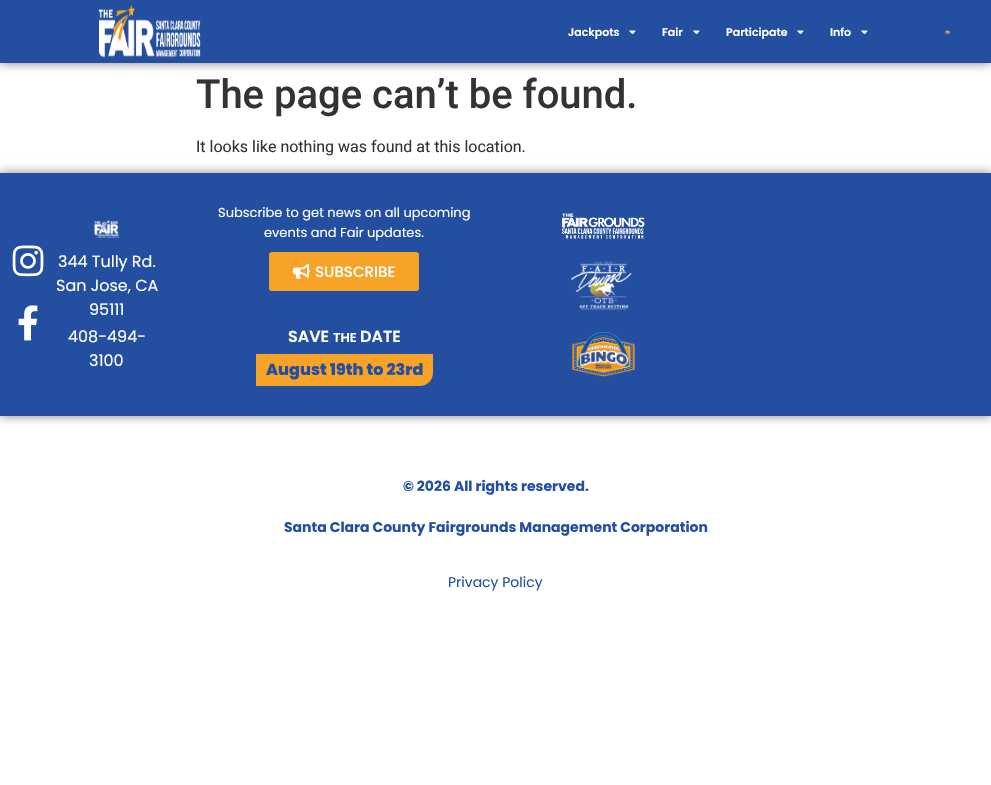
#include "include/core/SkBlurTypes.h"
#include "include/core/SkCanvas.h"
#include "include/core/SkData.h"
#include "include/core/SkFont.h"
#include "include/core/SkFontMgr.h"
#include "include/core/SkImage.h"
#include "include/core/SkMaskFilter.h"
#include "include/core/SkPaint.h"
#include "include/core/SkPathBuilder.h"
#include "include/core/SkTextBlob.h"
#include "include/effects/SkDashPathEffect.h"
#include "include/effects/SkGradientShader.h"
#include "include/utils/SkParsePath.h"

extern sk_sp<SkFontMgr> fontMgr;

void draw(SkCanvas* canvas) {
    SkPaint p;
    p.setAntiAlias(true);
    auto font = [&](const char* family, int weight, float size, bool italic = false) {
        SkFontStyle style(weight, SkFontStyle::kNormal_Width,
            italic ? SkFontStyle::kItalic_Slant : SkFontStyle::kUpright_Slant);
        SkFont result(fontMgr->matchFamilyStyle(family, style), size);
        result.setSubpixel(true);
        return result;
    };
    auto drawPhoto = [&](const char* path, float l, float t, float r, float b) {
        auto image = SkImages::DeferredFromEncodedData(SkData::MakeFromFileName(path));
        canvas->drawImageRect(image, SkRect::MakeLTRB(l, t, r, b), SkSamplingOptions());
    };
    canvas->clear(0xFFFFFFFF);
    p.setColor(0x80000000);
    p.setMaskFilter(SkMaskFilter::MakeBlur(kNormal_SkBlurStyle, 5));
    canvas->drawRect(SkRect::MakeLTRB(0, 0, 991, 63), p);
    p.setMaskFilter(nullptr);
    p.setColor(0xFF244FA1);
    canvas->drawRect(SkRect::MakeLTRB(0, 0, 991, 63), p);
    drawPhoto("media/1.png", 98, 4, 201, 58);
    auto font1 = font("Poppins", 600, 11);
    p.setColor(0xFFFFFFFF);
    canvas->drawString("Jackpots", 568, 36, font1, p);
    drawPhoto("media/2.png", 629, 30, 636, 35);
    canvas->drawString("Fair", 662, 36, font1, p);
    drawPhoto("media/2.png", 693, 30, 700, 35);
    canvas->drawString("Participate", 726, 36, font1, p);
    drawPhoto("media/2.png", 797, 30, 804, 35);
    canvas->drawString("Info", 830, 36, font1, p);
    drawPhoto("media/2.png", 861, 30, 868, 35);
    drawPhoto("media/3.png", 945, 30, 950, 34);
    auto font2 = font("Roboto", 500, 40);
    p.setColor(0xFF333333);
    canvas->drawString("The page can’t be found.", 196, 108, font2, p);
    auto font3 = font("Roboto", 400, 16);
    canvas->drawString("It looks like nothing was found at this location.", 196, 152, font3, p);
    p.setColor(0x80000000);
    p.setMaskFilter(SkMaskFilter::MakeBlur(kNormal_SkBlurStyle, 5));
    canvas->drawRect(SkRect::MakeLTRB(0, 173, 991, 416), p);
    p.setMaskFilter(nullptr);
    p.setColor(0xFF244FA1);
    canvas->drawRect(SkRect::MakeLTRB(0, 173, 991, 416), p);
    drawPhoto("media/4.png", 12, 245, 44, 277);
    drawPhoto("media/5.png", 18, 305, 38, 341);
    drawPhoto("media/6.png", 94, 220, 119, 238);
    auto font4 = font("Poppins", 400, 16);
    p.setColor(0xFFFFFFFF);
    {
        const struct { const char* s; float x, y; } items[] = {
            {"344 Tully Rd.", 58, 267},
            {"San Jose, CA", 56, 291},
            {"95111", 89, 315},
            {"408-494-", 68, 342},
            {"3100", 89, 366},
        };
        for (auto [s, x, y] : items) {
            canvas->drawString(s, x, y, font4, p);
        }
    }
    auto font5 = font("Poppins", 400, 13);
    canvas->drawString("Subscribe to get news on all upcoming", 218, 217, font5, p);
    canvas->drawString("events and Fair updates.", 264, 237, font5, p);
    p.setColor(0xFFF7A327);
    canvas->drawRoundRect(SkRect::MakeLTRB(269, 252, 419, 291), 3, 3, p);
    drawPhoto("media/7.png", 293, 263, 310, 279);
    auto font6 = font("Poppins", 500, 15);
    p.setColor(0xFFFFFFFF);
    canvas->drawString("SUBSCRIBE", 315, 277, font6, p);
    auto font7 = font("Poppins", 600, 16);
    canvas->drawString("SAVE", 288, 342, font7, p);
    auto font8 = font("Poppins", 600, 13);
    canvas->drawString("THE", 333, 342, font8, p);
    canvas->drawString("DATE", 360, 342, font7, p);
    p.setColor(0xFFF7A327);
    canvas->drawPath(SkPathBuilder().moveTo(256, 354).lineTo(433, 354).lineTo(433, 373).cubicTo(433, 380, 427, 386, 420, 386).lineTo(256, 386).close().detach(), p);
    auto font9 = font("Poppins", 800, 16);
    p.setColor(0xFF244FA1);
    canvas->drawString("August 19th to 23rd", 266, 375, font9, p);
    drawPhoto("media/8.png", 561, 213, 645, 239);
    drawPhoto("media/9.png", 571, 261, 632, 310);
    drawPhoto("media/10.png", 572, 331, 635, 377);
    auto font10 = font("Poppins", 700, 14);
    canvas->drawString("© 2026 All rights reserved.", 403, 491, font10, p);
    canvas->drawString("Santa Clara County Fairgrounds Management Corporation", 284, 532, font10, p);
    auto font11 = font("Poppins", 400, 14);
    canvas->drawString("Privacy Policy", 448, 587, font11, p);
}
